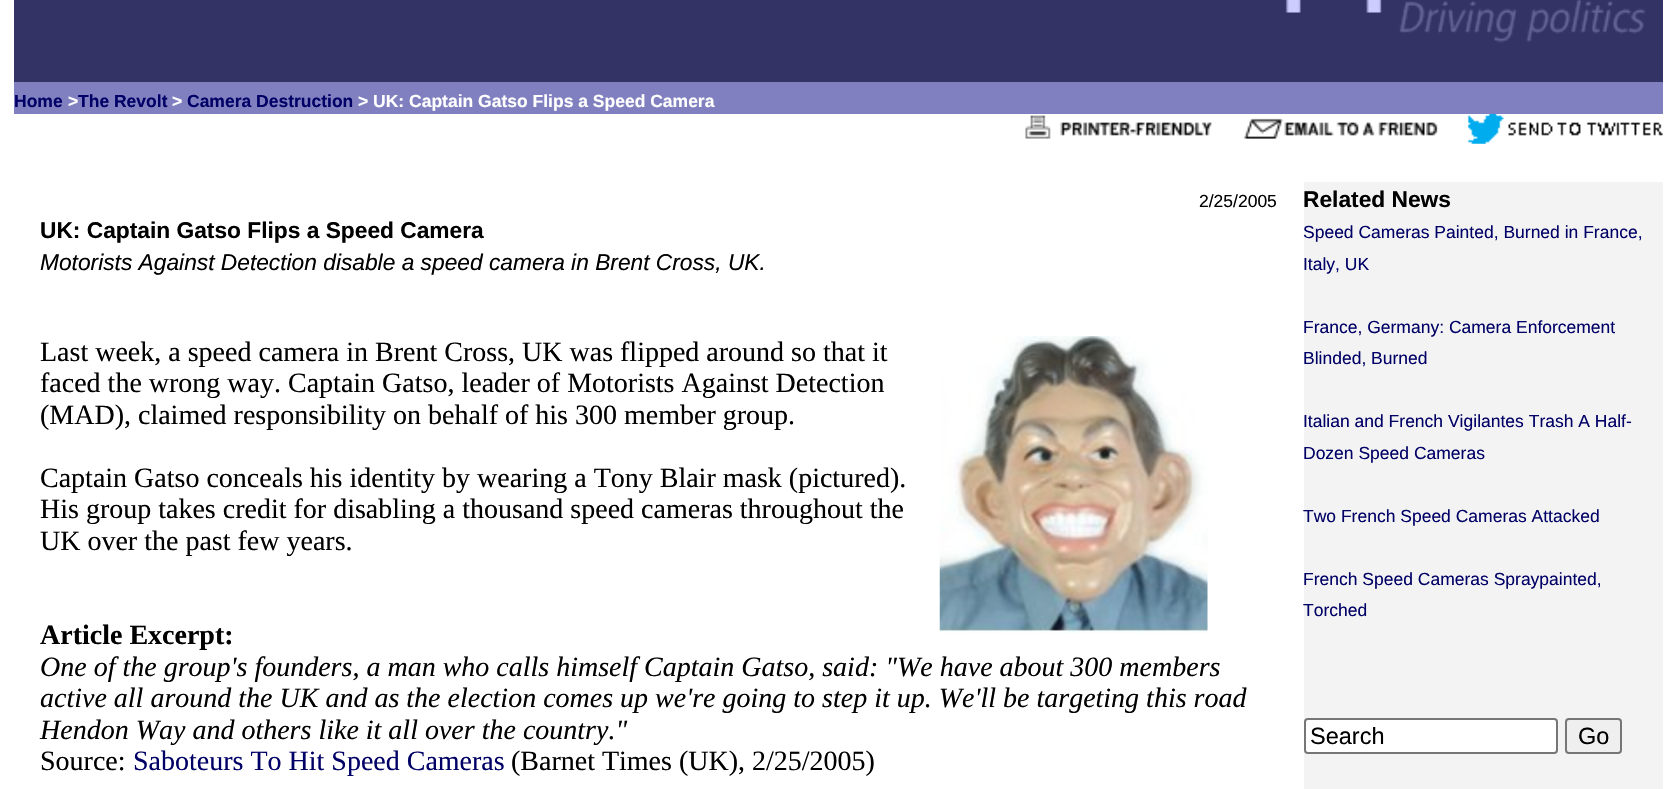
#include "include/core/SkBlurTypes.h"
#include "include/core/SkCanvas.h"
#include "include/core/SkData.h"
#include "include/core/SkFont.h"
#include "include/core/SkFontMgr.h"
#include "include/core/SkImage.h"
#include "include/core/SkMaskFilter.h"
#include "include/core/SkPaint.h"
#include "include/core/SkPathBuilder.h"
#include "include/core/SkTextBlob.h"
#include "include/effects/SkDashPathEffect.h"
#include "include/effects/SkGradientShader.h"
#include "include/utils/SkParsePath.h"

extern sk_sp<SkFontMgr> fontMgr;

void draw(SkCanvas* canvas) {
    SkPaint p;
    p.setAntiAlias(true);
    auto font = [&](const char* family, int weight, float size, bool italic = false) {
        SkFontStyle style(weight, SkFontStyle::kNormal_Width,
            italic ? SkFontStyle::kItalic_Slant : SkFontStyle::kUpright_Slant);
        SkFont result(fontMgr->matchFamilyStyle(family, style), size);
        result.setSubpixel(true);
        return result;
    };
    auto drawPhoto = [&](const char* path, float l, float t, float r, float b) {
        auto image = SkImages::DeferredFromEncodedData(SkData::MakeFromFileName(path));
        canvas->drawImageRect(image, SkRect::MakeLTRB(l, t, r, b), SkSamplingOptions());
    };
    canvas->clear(0xFFFFFFFF);
    p.setColor(0xFF333366);
    canvas->drawRect(SkRect::MakeLTRB(14, 0, 1663, 82), p);
    drawPhoto("media/1.png", 1285, 0, 1646, 43);
    p.setColor(0xFF8080C0);
    canvas->drawRect(SkRect::MakeLTRB(14, 82, 1663, 114), p);
    auto font1 = font("Liberation Sans", 700, 17.5f);
    p.setColor(0xFF000066);
    canvas->drawString("Home", 14, 107, font1, p);
    p.setColor(0xFFFFFFFF);
    canvas->drawString(">", 68, 107, font1, p);
    p.setColor(0xFF000066);
    canvas->drawString("The Revolt", 78, 107, font1, p);
    p.setColor(0xFFFFFFFF);
    canvas->drawString(">", 172, 107, font1, p);
    p.setColor(0xFF000066);
    canvas->drawString("Camera Destruction", 187, 107, font1, p);
    p.setColor(0xFFFFFFFF);
    canvas->drawString("> UK: Captain Gatso Flips a Speed Camera", 358, 107, font1, p);
    drawPhoto("media/2.png", 1025, 115, 1212, 139);
    drawPhoto("media/3.png", 1243, 118, 1438, 139);
    drawPhoto("media/4.png", 1467, 114, 1663, 144);
    auto font2 = font("Liberation Sans", 400, 17.5f);
    p.setColor(0xFF000000);
    canvas->drawString("2/25/2005", 1199, 207, font2, p);
    auto font3 = font("Liberation Sans", 700, 22.75f);
    canvas->drawString("UK: Captain Gatso Flips a Speed Camera", 40, 238, font3, p);
    auto font4 = font("Liberation Sans", 400, 22.75f, true);
    canvas->drawString("Motorists Against Detection disable a speed camera in Brent Cross, UK.", 40, 270, font4, p);
    drawPhoto("media/5.png", 939, 336, 1208, 634);
    auto font5 = font("Liberation Serif", 400, 28);
    {
        const struct { const char* s; float x, y; } items[] = {
            {"Last week, a speed camera in Brent Cross, UK was flipped around so that it", 40, 361},
            {"faced the wrong way. Captain Gatso, leader of Motorists Against Detection", 40, 392},
            {"(MAD), claimed responsibility on behalf of his 300 member group.", 40, 424},
            {"Captain Gatso conceals his identity by wearing a Tony Blair mask (pictured).", 40, 487},
            {"His group takes credit for disabling a thousand speed cameras throughout the", 40, 518},
            {"UK over the past few years.", 40, 550},
        };
        for (auto [s, x, y] : items) {
            canvas->drawString(s, x, y, font5, p);
        }
    }
    auto font6 = font("Liberation Serif", 700, 28);
    canvas->drawString("Article Excerpt:", 40, 644, font6, p);
    auto font7 = font("Liberation Serif", 400, 28, true);
    {
        const struct { const char* s; float x, y; } items[] = {
            {"One of the group's founders, a man who calls himself Captain Gatso, said: \"We have about 300 members", 40, 676},
            {"active all around the UK and as the election comes up we're going to step it up. We'll be targeting this road", 40, 707},
            {"Hendon Way and others like it all over the country.\"", 40, 739},
        };
        for (auto [s, x, y] : items) {
            canvas->drawString(s, x, y, font7, p);
        }
    }
    canvas->drawString("Source:", 40, 770, font5, p);
    p.setColor(0xFF000066);
    canvas->drawString("Saboteurs To Hit Speed Cameras", 133, 770, font5, p);
    p.setColor(0xFF000000);
    canvas->drawString("(Barnet Times (UK), 2/25/2005)", 511, 770, font5, p);
    p.setColor(0xFFF3F3F3);
    canvas->drawRect(SkRect::MakeLTRB(1304, 182, 1663, 789), p);
    p.setColor(0xFF000000);
    canvas->drawString("Related News", 1303, 207, font3, p);
    p.setColor(0xFF000066);
    {
        const struct { const char* s; float x, y; } items[] = {
            {"Speed Cameras Painted, Burned in France,", 1303, 238},
            {"Italy, UK", 1303, 270},
            {"France, Germany: Camera Enforcement", 1303, 333},
            {"Blinded, Burned", 1303, 364},
            {"Italian and French Vigilantes Trash A Half-", 1303, 427},
            {"Dozen Speed Cameras", 1303, 459},
            {"Two French Speed Cameras Attacked", 1303, 522},
            {"French Speed Cameras Spraypainted,", 1303, 585},
            {"Torched", 1303, 616},
        };
        for (auto [s, x, y] : items) {
            canvas->drawString(s, x, y, font2, p);
        }
    }
    p.setColor(0xFFFFFFFF);
    canvas->drawRoundRect(SkRect::MakeLTRB(1305, 719, 1557, 753), 3, 3, p);
    p.setStyle(SkPaint::kStroke_Style);
    p.setStrokeWidth(2);
    p.setColor(0xFF767676);
    canvas->drawRoundRect(SkRect::MakeLTRB(1305, 719, 1557, 753), 3, 3, p);
    auto font8 = font("Liberation Sans", 400, 23.5f);
    p.setStyle(SkPaint::kFill_Style);
    p.setColor(0xFF000000);
    canvas->drawString("Search", 1310, 744, font8, p);
    p.setColor(0xFFEFEFEF);
    canvas->drawRoundRect(SkRect::MakeLTRB(1566, 719, 1621, 753), 3, 3, p);
    p.setStyle(SkPaint::kStroke_Style);
    p.setColor(0xFF767676);
    canvas->drawRoundRect(SkRect::MakeLTRB(1566, 719, 1621, 753), 3, 3, p);
    p.setStyle(SkPaint::kFill_Style);
    p.setColor(0xFF000000);
    canvas->drawString("Go", 1578, 744, font8, p);
}
